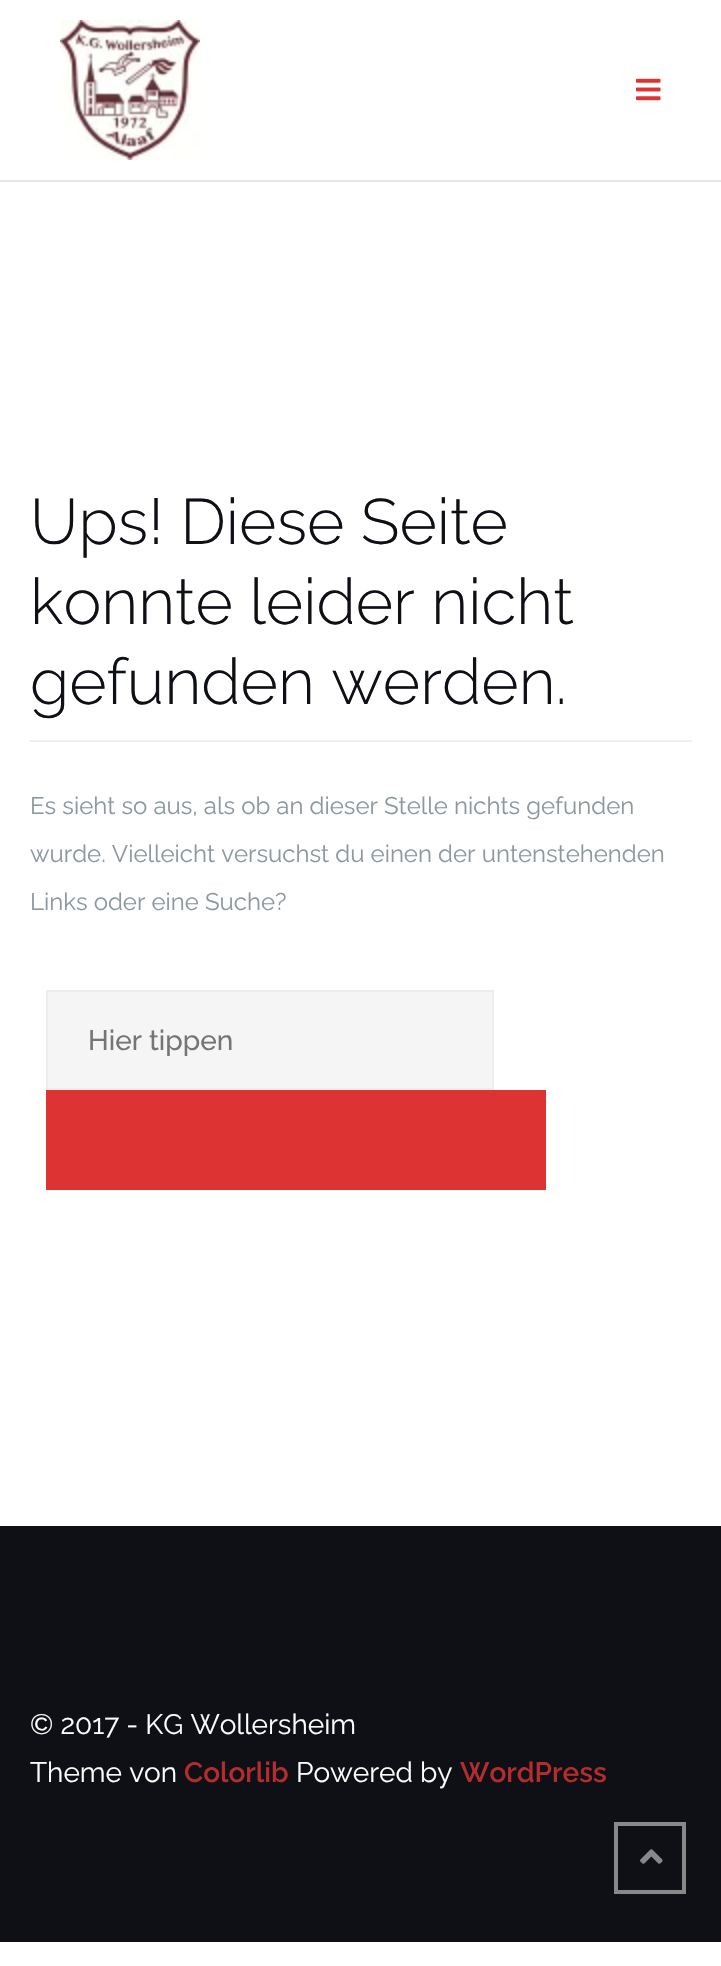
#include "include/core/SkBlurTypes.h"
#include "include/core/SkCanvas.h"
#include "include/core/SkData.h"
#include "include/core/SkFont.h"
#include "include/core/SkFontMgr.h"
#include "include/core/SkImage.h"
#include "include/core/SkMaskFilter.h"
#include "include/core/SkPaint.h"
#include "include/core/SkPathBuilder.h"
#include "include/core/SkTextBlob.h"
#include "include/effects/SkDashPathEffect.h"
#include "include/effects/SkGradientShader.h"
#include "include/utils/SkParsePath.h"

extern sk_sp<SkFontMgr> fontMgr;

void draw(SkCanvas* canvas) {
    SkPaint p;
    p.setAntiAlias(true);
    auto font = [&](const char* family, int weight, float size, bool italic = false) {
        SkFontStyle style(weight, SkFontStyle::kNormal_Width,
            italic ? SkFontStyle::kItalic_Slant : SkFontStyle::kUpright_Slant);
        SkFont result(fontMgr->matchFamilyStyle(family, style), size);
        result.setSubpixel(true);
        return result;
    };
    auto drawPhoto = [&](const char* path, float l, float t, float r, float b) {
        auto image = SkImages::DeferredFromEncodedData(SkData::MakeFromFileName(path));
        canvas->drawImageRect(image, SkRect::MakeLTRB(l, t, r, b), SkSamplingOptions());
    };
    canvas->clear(0xFFFFFFFF);
    p.setColor(0xFFE6E6E6);
    canvas->drawRect(SkRect::MakeLTRB(0, 180, 721, 182), p);
    drawPhoto("media/1.png", 60, 20, 200, 160);
    drawPhoto("media/2.png", 636, 78, 661, 101);
    p.setColor(0xFFEEEEEE);
    canvas->drawRect(SkRect::MakeLTRB(30, 740, 692, 742), p);
    auto font1 = font("Raleway", 300, 64);
    p.setColor(0xFF0E1015);
    {
        const struct { const char* s; float x, y; } items[] = {
            {"Ups! Diese Seite", 30, 544},
            {"konnte leider nicht", 30, 624},
            {"gefunden werden.", 30, 704},
        };
        for (auto [s, x, y] : items) {
            canvas->drawString(s, x, y, font1, p);
        }
    }
    auto font2 = font("Raleway", 400, 24);
    p.setColor(0xFF8C979E);
    {
        const struct { const char* s; float x, y; } items[] = {
            {"Es sieht so aus, als ob an dieser Stelle nichts gefunden", 30, 814},
            {"wurde. Vielleicht versuchst du einen der untenstehenden", 30, 862},
            {"Links oder eine Suche?", 30, 910},
        };
        for (auto [s, x, y] : items) {
            canvas->drawString(s, x, y, font2, p);
        }
    }
    p.setColor(0xFFF5F5F5);
    canvas->drawRect(SkRect::MakeLTRB(47, 991, 493, 1089), p);
    p.setStyle(SkPaint::kStroke_Style);
    p.setStrokeWidth(2);
    p.setColor(0xFFEEEEEE);
    canvas->drawRect(SkRect::MakeLTRB(47, 991, 493, 1089), p);
    auto font3 = font("Raleway", 500, 28);
    p.setStyle(SkPaint::kFill_Style);
    p.setColor(0xFF757575);
    canvas->drawString("Hier tippen", 88, 1050, font3, p);
    p.setColor(0xFFDD3333);
    canvas->drawRect(SkRect::MakeLTRB(46, 1090, 546, 1190), p);
    p.setColor(0xFF0E1015);
    canvas->drawRect(SkRect::MakeLTRB(0, 1526, 721, 1942), p);
    auto font4 = font("Raleway", 400, 28);
    p.setColor(0xFFFEFEFE);
    canvas->drawString("© 2017 - KG Wollersheim", 30, 1734, font4, p);
    canvas->drawString("Theme von", 30, 1782, font4, p);
    auto font5 = font("Raleway", 600, 28);
    p.setColor(0xFFB42C2D);
    canvas->drawString("Colorlib", 184, 1782, font5, p);
    p.setColor(0xFFFEFEFE);
    canvas->drawString("Powered by", 296, 1782, font4, p);
    p.setColor(0xFFB42C2D);
    canvas->drawString("WordPress", 460, 1782, font5, p);
    p.setStyle(SkPaint::kStroke_Style);
    p.setStrokeWidth(4);
    p.setColor(0xFF87888A);
    canvas->drawRect(SkRect::MakeLTRB(616, 1824, 684, 1892), p);
    drawPhoto("media/3.png", 640, 1849, 663, 1864);
}
